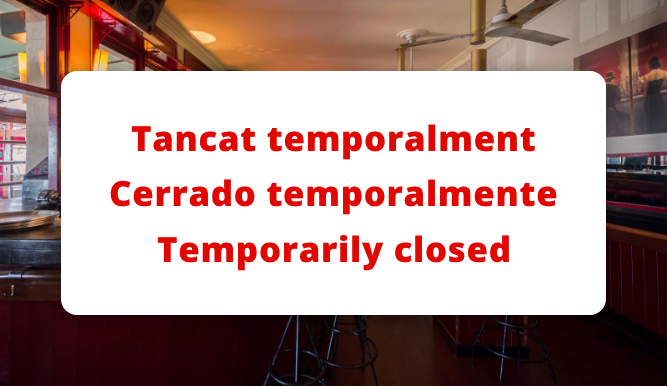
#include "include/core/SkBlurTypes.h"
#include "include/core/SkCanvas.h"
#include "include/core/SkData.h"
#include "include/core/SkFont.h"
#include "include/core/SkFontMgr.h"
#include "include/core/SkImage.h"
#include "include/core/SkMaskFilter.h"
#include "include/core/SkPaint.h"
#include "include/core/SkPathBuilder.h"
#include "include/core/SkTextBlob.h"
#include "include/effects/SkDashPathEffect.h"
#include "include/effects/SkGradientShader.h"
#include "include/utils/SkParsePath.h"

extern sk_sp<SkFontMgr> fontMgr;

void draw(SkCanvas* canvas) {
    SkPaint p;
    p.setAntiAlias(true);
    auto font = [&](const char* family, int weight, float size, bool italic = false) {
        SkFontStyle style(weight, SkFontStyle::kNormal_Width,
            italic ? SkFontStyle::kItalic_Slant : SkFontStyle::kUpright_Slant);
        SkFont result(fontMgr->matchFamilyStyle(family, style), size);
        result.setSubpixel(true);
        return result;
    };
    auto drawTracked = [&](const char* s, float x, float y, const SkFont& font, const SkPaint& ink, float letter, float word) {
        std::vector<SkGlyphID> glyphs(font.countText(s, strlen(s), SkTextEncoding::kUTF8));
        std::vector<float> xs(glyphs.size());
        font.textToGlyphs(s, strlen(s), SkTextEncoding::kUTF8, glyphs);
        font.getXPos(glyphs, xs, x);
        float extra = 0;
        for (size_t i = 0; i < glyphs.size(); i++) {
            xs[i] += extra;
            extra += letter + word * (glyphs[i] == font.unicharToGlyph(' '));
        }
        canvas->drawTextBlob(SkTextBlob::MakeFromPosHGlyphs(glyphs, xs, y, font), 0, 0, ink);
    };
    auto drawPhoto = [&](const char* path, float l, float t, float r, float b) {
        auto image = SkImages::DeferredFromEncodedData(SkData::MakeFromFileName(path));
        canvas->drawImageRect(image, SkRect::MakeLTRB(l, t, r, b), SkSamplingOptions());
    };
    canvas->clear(0xFFFFFFFF);
    drawPhoto("media/1.png", 0, 0, 667, 386);
    p.setColor(0x66000000);
    p.setMaskFilter(SkMaskFilter::MakeBlur(kNormal_SkBlurStyle, 10));
    canvas->drawRoundRect(SkRect::MakeLTRB(61, 75, 606, 319), 16, 16, p);
    p.setMaskFilter(nullptr);
    p.setColor(0xFFFFFFFF);
    canvas->drawRoundRect(SkRect::MakeLTRB(61, 71, 606, 315), 16, 16, p);
    auto font1 = font("Noto Sans", 900, 34.75f);
    p.setColor(0xFFE10600);
    {
        const struct { const char* s; float x, y; } items[] = {
            {"Tancat temporalment", 131, 151},
            {"Cerrado temporalmente", 109, 206},
            {"Temporarily closed", 157, 262},
        };
        for (auto [s, x, y] : items) {
            drawTracked(s, x, y, font1, p, 0.7f, 0);
        }
    }
}
